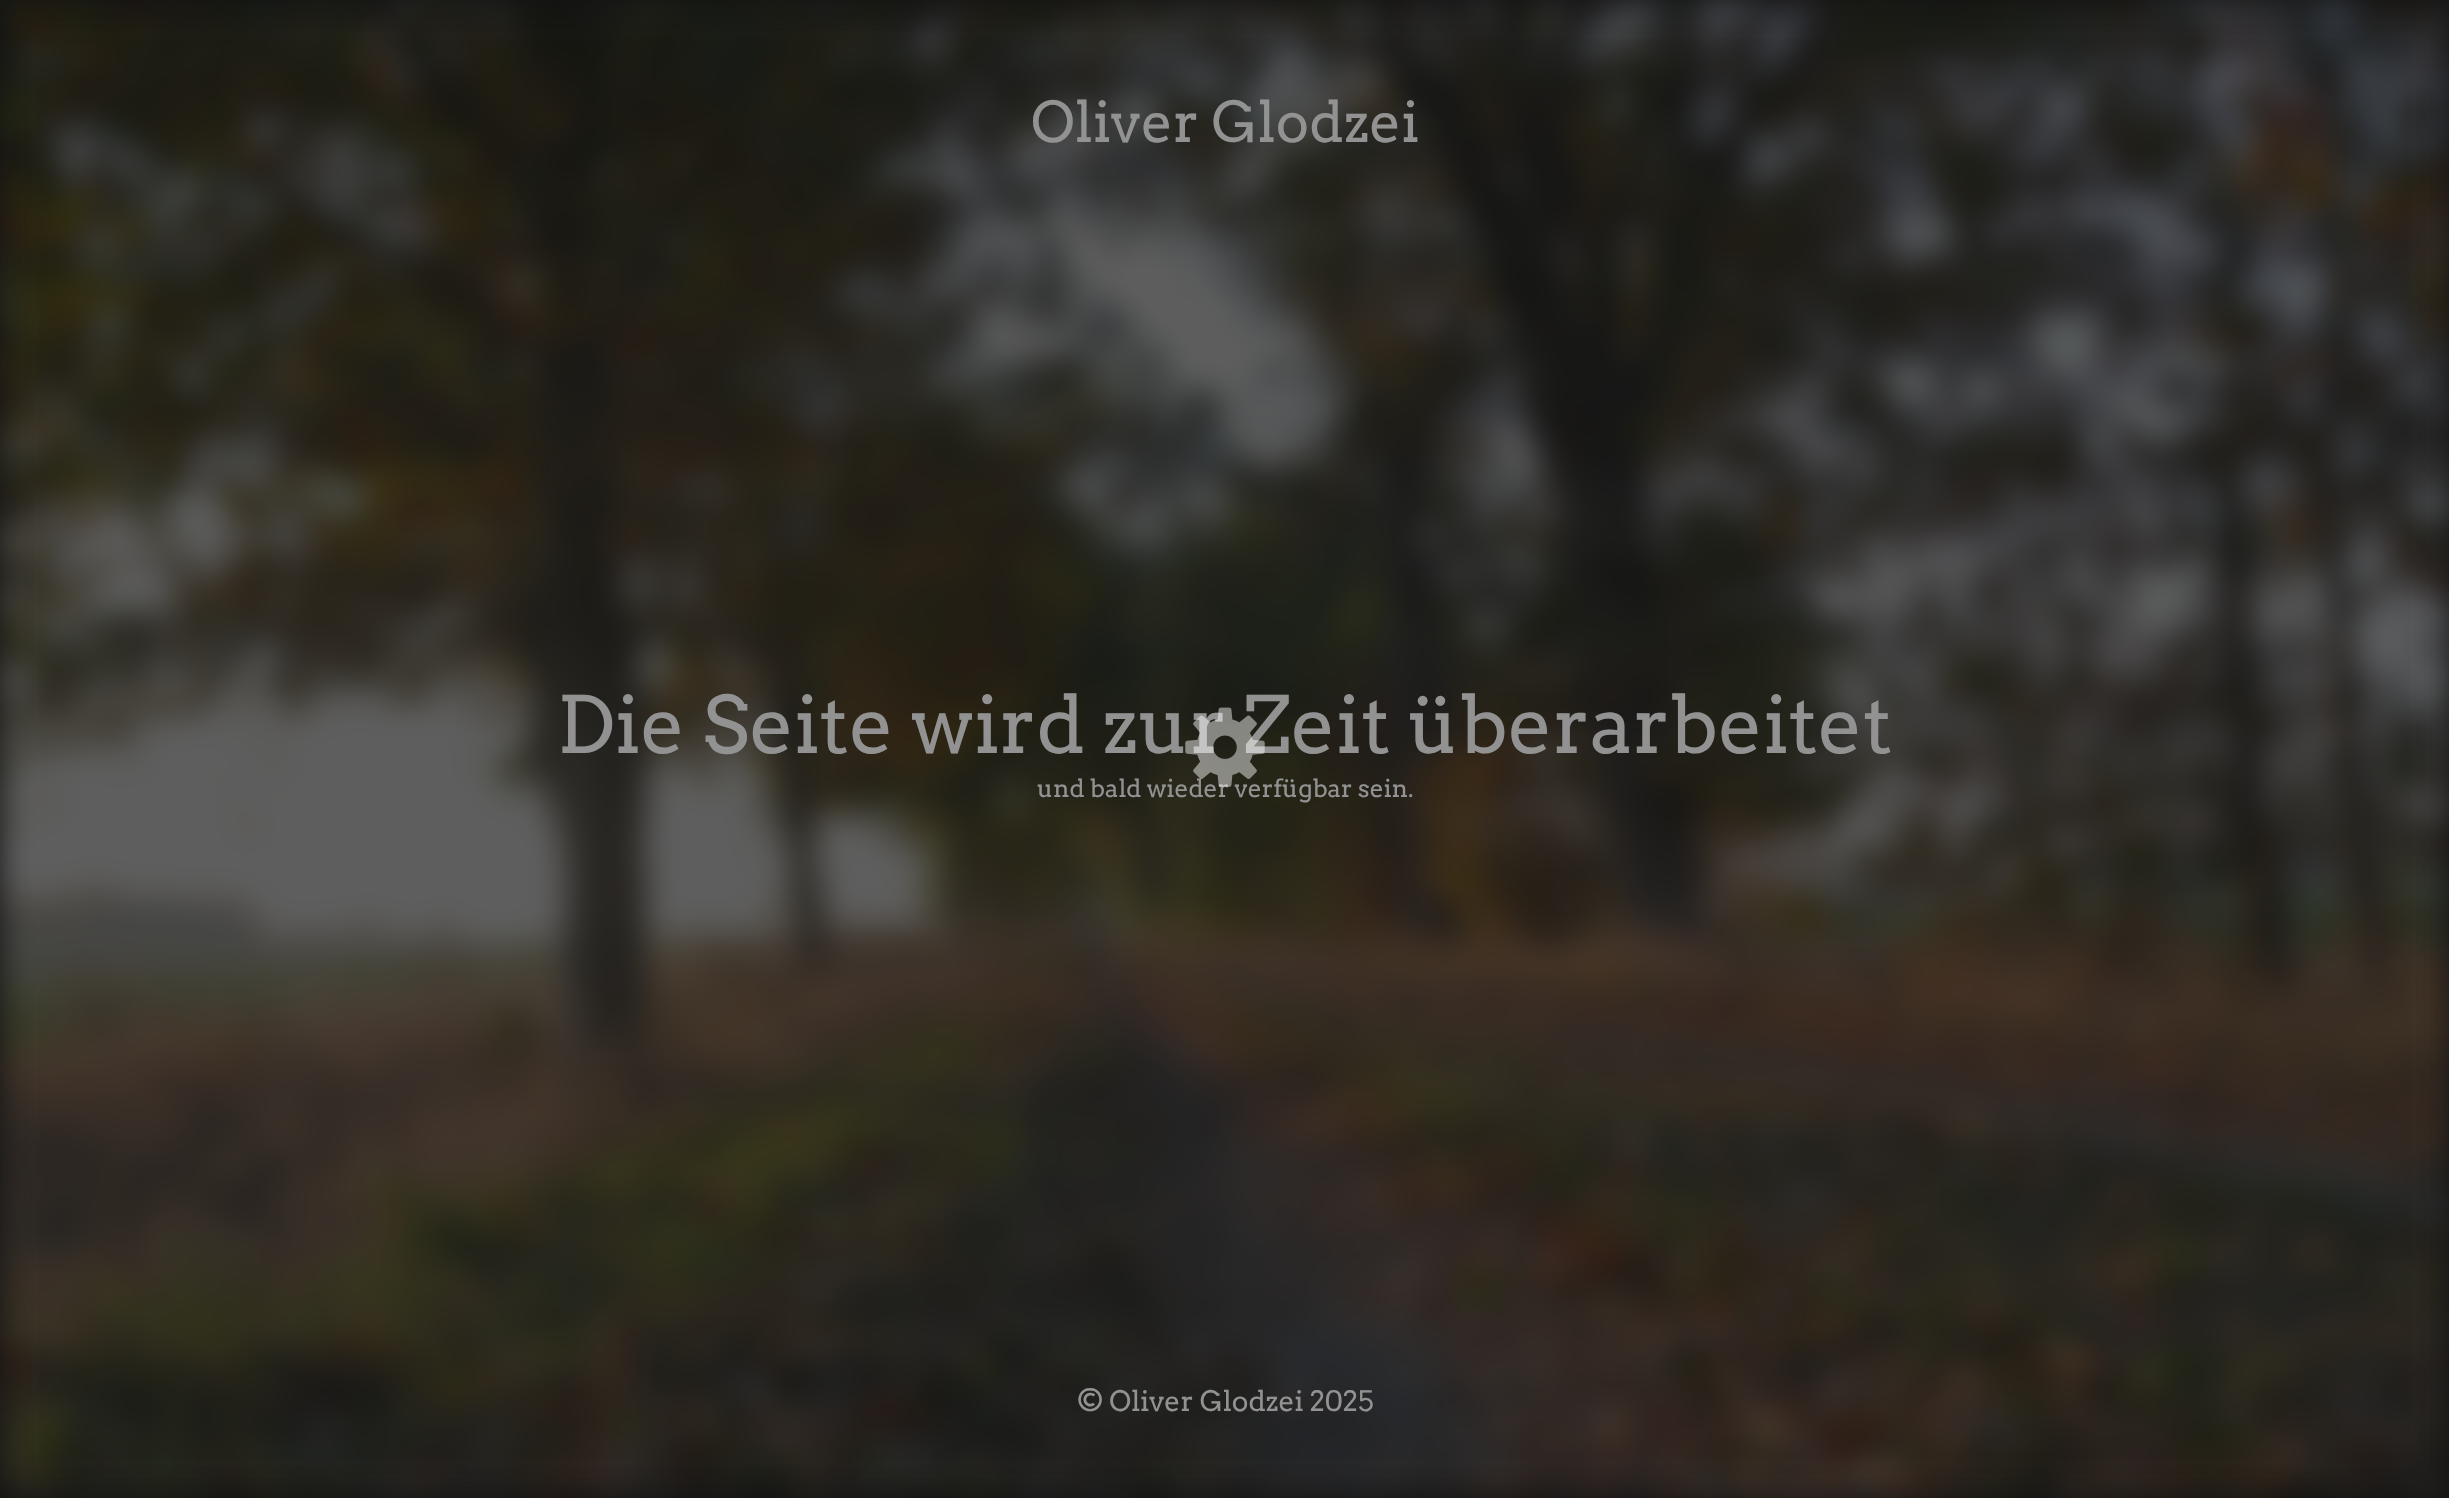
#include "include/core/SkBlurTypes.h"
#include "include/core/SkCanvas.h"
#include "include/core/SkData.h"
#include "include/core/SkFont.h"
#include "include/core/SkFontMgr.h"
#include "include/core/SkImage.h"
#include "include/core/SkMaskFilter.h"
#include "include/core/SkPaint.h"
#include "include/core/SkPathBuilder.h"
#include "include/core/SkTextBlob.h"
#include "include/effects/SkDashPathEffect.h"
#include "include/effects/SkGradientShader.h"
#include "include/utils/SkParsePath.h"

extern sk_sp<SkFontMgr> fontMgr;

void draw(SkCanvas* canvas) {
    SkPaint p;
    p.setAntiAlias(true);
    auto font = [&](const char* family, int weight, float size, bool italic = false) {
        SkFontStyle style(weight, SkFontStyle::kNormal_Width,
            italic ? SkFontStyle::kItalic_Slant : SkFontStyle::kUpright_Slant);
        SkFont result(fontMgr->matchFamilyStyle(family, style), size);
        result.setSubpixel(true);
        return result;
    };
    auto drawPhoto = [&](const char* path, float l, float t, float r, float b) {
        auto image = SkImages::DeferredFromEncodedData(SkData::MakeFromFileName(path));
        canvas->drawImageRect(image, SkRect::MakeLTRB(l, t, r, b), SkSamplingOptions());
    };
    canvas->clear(0xFF111111);
    drawPhoto("media/1.png", 0, 0, 2449, 1498);
    auto font1 = font("Arvo", 400, 56);
    p.setColor(0xFF929292);
    canvas->drawString("Oliver Glodzei", 1031, 142, font1, p);
    auto font2 = font("Arvo", 400, 78.75f);
    canvas->drawString("Die Seite wird zur Zeit überarbeitet", 557, 753, font2, p);
    auto font3 = font("Arvo", 400, 24.5f);
    canvas->drawString("und bald wieder verfügbar sein.", 1037, 797, font3, p);
    drawPhoto("media/2.png", 1185, 707, 1265, 787);
    auto font4 = font("Arvo", 400, 28);
    canvas->drawString("© Oliver Glodzei 2025", 1077, 1411, font4, p);
}
